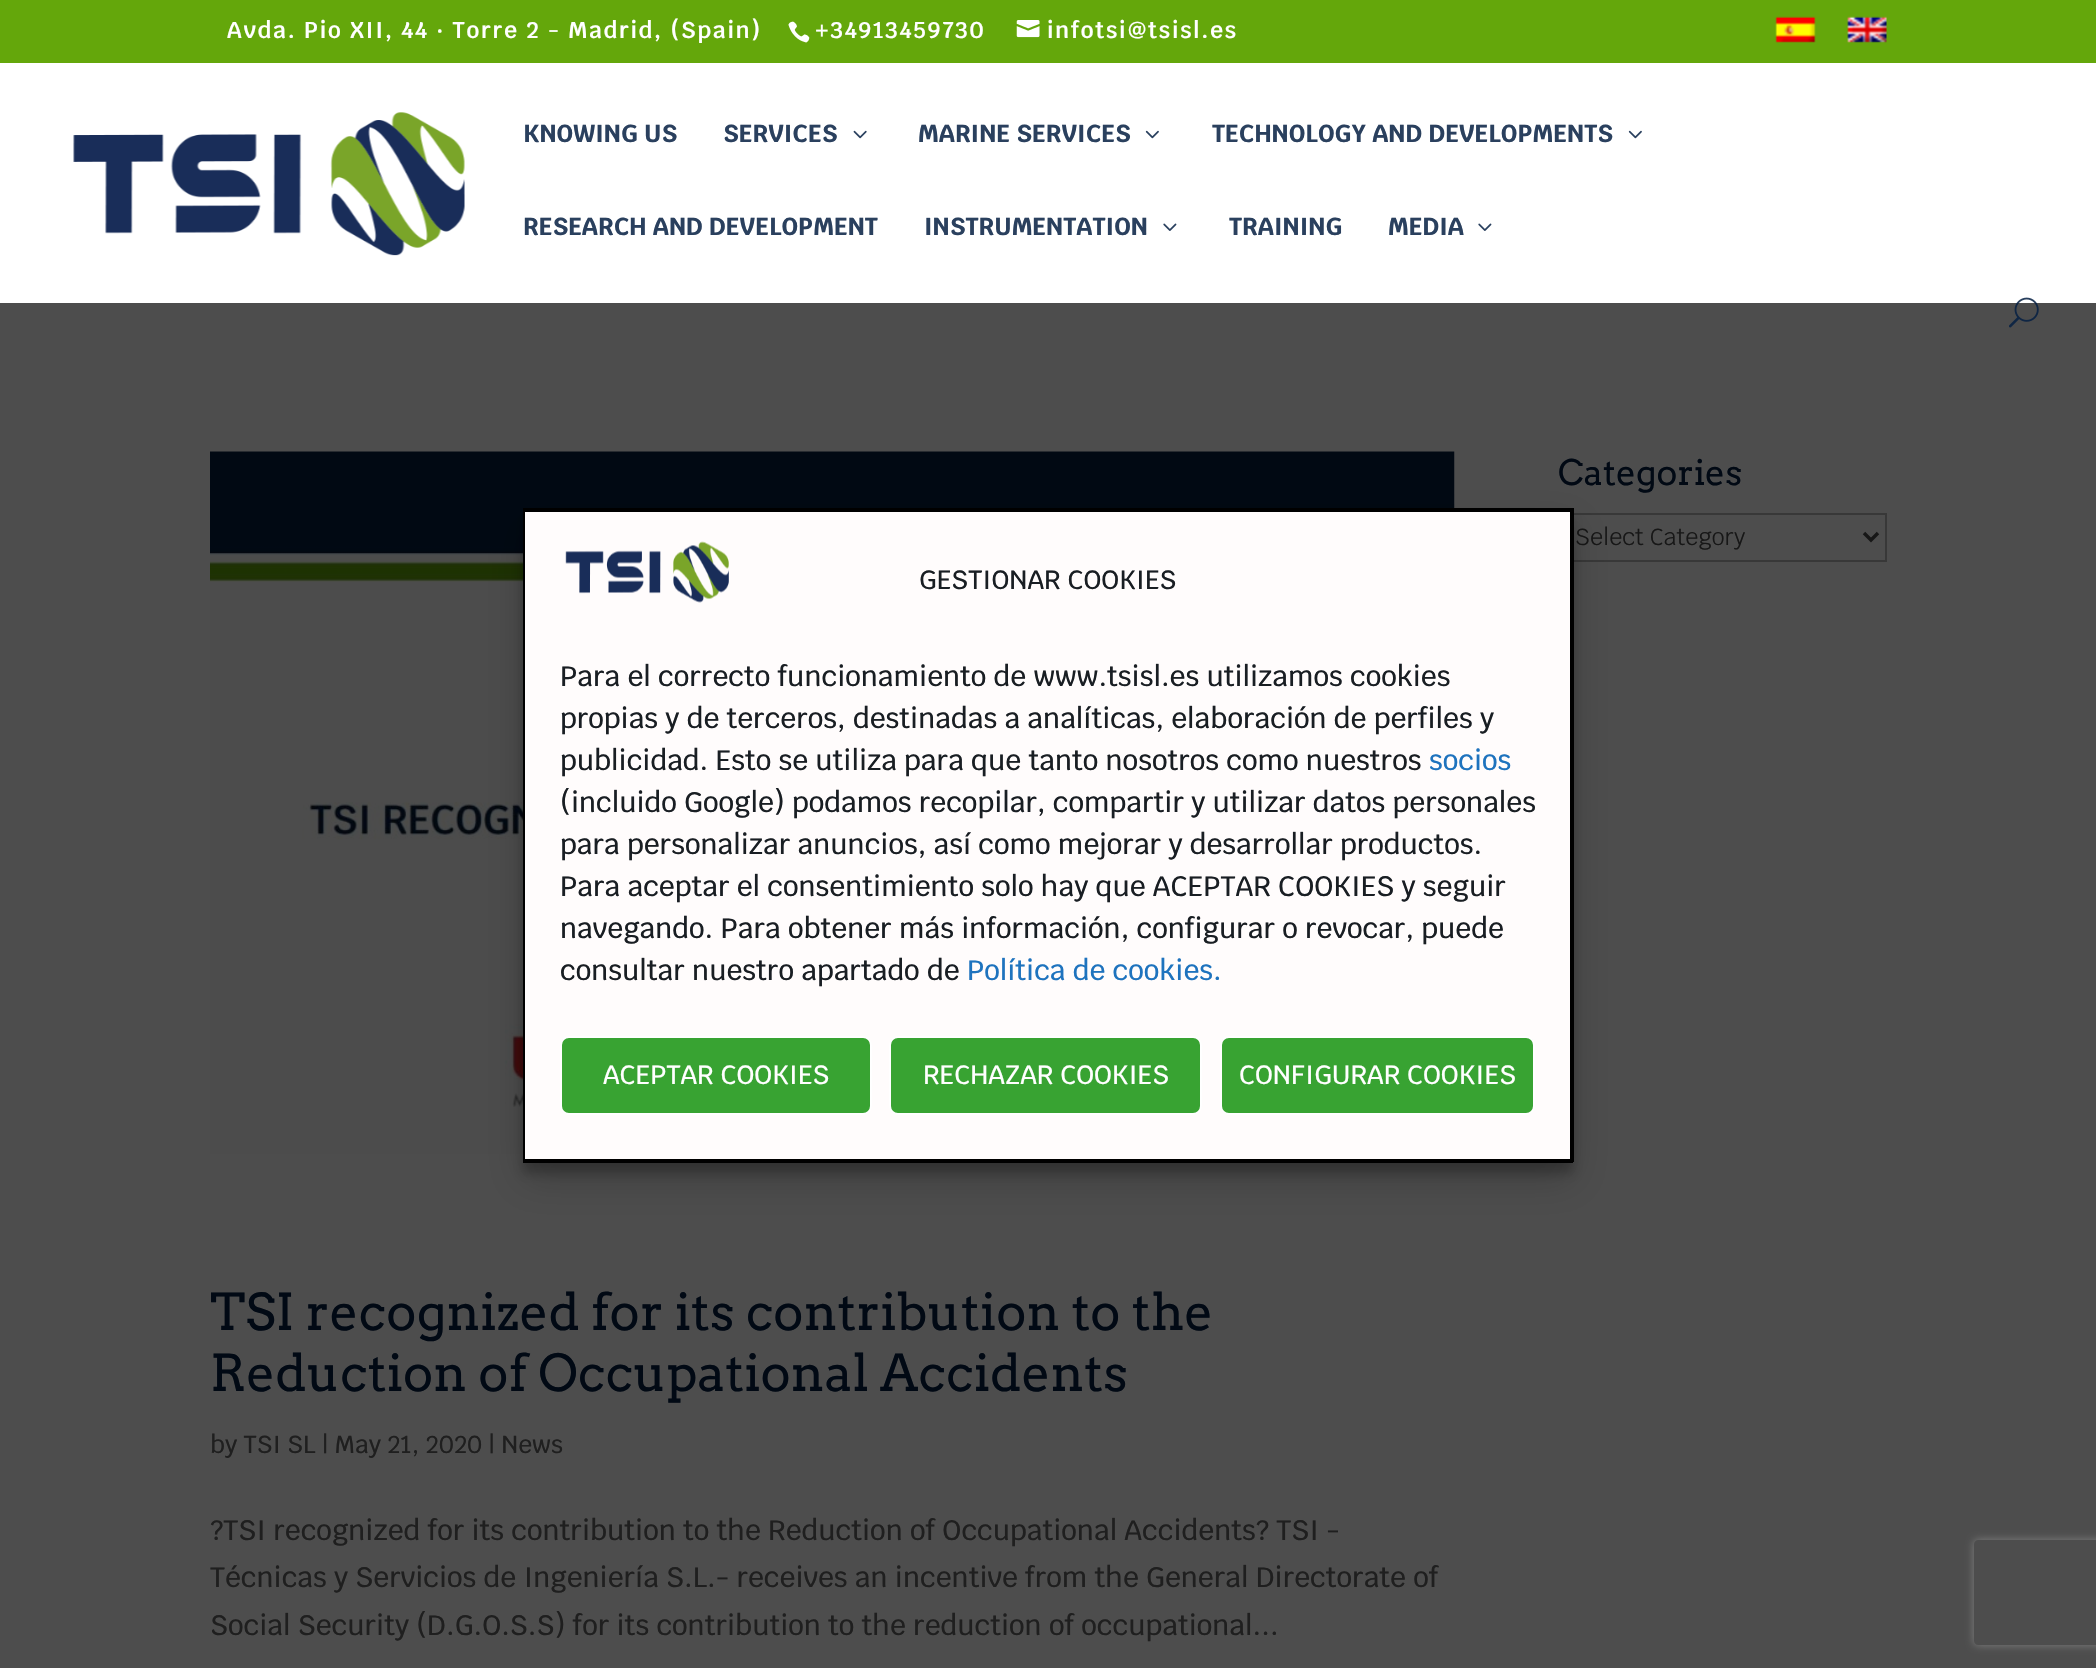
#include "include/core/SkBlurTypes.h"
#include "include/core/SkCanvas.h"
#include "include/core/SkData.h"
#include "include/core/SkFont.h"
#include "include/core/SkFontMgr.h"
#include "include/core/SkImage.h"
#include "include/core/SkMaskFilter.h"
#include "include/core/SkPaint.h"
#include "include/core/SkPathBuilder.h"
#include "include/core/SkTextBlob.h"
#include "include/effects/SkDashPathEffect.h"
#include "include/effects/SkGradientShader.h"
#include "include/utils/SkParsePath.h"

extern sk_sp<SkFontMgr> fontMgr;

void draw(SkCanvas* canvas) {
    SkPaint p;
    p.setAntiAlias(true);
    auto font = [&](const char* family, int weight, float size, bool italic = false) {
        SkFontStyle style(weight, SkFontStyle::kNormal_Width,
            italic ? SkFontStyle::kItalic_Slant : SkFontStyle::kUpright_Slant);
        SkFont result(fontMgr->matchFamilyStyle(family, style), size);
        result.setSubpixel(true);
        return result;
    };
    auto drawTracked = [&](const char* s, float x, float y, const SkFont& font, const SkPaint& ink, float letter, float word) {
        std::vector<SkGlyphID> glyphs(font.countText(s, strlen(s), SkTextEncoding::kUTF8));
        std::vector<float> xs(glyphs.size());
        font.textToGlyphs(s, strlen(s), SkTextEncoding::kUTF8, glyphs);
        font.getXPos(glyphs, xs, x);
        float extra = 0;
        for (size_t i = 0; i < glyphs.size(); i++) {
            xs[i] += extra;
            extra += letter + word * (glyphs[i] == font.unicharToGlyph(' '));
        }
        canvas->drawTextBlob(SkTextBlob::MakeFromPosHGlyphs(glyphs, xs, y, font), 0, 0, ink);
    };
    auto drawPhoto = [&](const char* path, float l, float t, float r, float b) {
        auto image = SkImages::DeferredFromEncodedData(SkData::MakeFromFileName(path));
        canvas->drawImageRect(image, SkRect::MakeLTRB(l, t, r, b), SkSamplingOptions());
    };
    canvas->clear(0xFF4D4D4D);
    p.setColor(0xFF64A70B);
    canvas->drawRect(SkRect::MakeLTRB(0, 0, 2096, 63), p);
    auto font1 = font("Krub", 600, 22.75f);
    p.setColor(0xFFFFFFFF);
    drawTracked("Avda. Pio XII, 44 · Torre 2 - Madrid, (Spain)", 227, 38, font1, p, 1.75f, 0);
    drawPhoto("media/1.png", 788, 21, 810, 43);
    drawTracked("+34913459730", 815, 38, font1, p, 1.75f, 0);
    drawPhoto("media/2.png", 1016, 20, 1040, 38);
    drawTracked("infotsi@tsisl.es", 1047, 38, font1, p, 1.75f, 0);
    drawPhoto("media/3.png", 1775, 16, 1816, 43);
    drawPhoto("media/4.png", 1847, 16, 1887, 43);
    canvas->drawRect(SkRect::MakeLTRB(0, 63, 2096, 303), p);
    drawPhoto("media/5.png", 73, 112, 465, 256);
    auto font2 = font("Krub", 700, 24.5f);
    p.setColor(0xFF2A405E);
    canvas->drawString("KNOWING US", 523, 142, font2, p);
    canvas->drawString("SERVICES", 723, 142, font2, p);
    drawPhoto("media/6.png", 853, 130, 867, 139);
    canvas->drawString("MARINE SERVICES", 918, 142, font2, p);
    drawPhoto("media/7.png", 1145, 130, 1159, 139);
    canvas->drawString("TECHNOLOGY AND DEVELOPMENTS", 1212, 142, font2, p);
    drawPhoto("media/7.png", 1628, 130, 1642, 139);
    canvas->drawString("RESEARCH AND DEVELOPMENT", 523, 235, font2, p);
    canvas->drawString("INSTRUMENTATION", 924, 235, font2, p);
    drawPhoto("media/8.png", 1163, 223, 1177, 231);
    canvas->drawString("TRAINING", 1229, 235, font2, p);
    canvas->drawString("MEDIA", 1388, 235, font2, p);
    drawPhoto("media/8.png", 1478, 223, 1492, 231);
    drawPhoto("media/9.png", 2009, 297, 2039, 328);
    auto font3 = font("Arvo", 400, 35);
    p.setColor(0xFF010914);
    canvas->drawString("Categories", 1558, 485, font3, p);
    p.setStyle(SkPaint::kStroke_Style);
    p.setStrokeWidth(2);
    p.setColor(0xFF383838);
    canvas->drawRect(SkRect::MakeLTRB(1559, 514, 1886, 561), p);
    p.setStrokeWidth(3.5f);
    p.setColor(0xFF171717);
    canvas->drawPath(SkPathBuilder().moveTo(1864, 533).lineTo(1871, 540).lineTo(1878, 533).detach(), p);
    auto font4 = font("Krub", 400, 23.25f);
    p.setStyle(SkPaint::kFill_Style);
    canvas->drawString("Select Category", 1575, 545, font4, p);
    drawPhoto("media/10.png", 210, 451, 1455, 1154);
    auto font5 = font("Arvo", 400, 50.75f);
    p.setColor(0xFF010914);
    canvas->drawString("TSI recognized for its contribution to the", 210, 1330, font5, p);
    canvas->drawString("Reduction of Occupational Accidents", 210, 1391, font5, p);
    auto font6 = font("Krub", 500, 24.5f);
    p.setColor(0xFF1F1F1F);
    canvas->drawString("by TSI SL | May 21, 2020 | News", 210, 1453, font6, p);
    auto font7 = font("Krub", 500, 28);
    {
        const struct { const char* s; float x, y; } items[] = {
            {"?TSI recognized for its contribution to the Reduction of Occupational Accidents? TSI -", 210, 1540},
            {"Técnicas y Servicios de Ingeniería S.L.- receives an incentive from the General Directorate of", 210, 1587},
            {"Social Security (D.G.O.S.S) for its contribution to the reduction of occupational...", 210, 1635},
        };
        for (auto [s, x, y] : items) {
            canvas->drawString(s, x, y, font7, p);
        }
    }
    p.setColor(0x3B000000);
    p.setMaskFilter(SkMaskFilter::MakeBlur(kNormal_SkBlurStyle, 5));
    canvas->drawRect(SkRect::MakeLTRB(523, 518, 1573, 1173), p);
    p.setMaskFilter(nullptr);
    p.setColor(0x30000000);
    p.setMaskFilter(SkMaskFilter::MakeBlur(kNormal_SkBlurStyle, 17.5f));
    canvas->drawRect(SkRect::MakeLTRB(523, 525, 1573, 1180), p);
    p.setMaskFilter(nullptr);
    {
        const struct { float l, t, r, b; SkColor color; } items[] = {
            {525, 512, 1570, 1159, 0xFFFFFCFC},
            {523, 508, 1573, 512, 0xFF000000},
            {1570, 508, 1574, 1162, 0xFF000000},
            {523, 1159, 1573, 1163, 0xFF000000},
            {523, 508, 525, 1162, 0xFF000000},
        };
        for (auto [l, t, r, b, color] : items) {
            p.setColor(color);
            canvas->drawRect(SkRect::MakeLTRB(l, t, r, b), p);
        }
    }
    drawPhoto("media/11.png", 565, 541, 729, 603);
    auto font8 = font("Krub", 500, 26.25f);
    p.setColor(0xFF191E23);
    canvas->drawString("GESTIONAR COOKIES", 919, 589, font8, p);
    {
        const struct { const char* s; float x, y; } items[] = {
            {"Para el correcto funcionamiento de www.tsisl.es utilizamos cookies", 560, 686},
            {"propias y de terceros, destinadas a analíticas, elaboración de perfiles y", 560, 728},
            {"publicidad. Esto se utiliza para que tanto nosotros como nuestros", 560, 770},
        };
        for (auto [s, x, y] : items) {
            canvas->drawString(s, x, y, font7, p);
        }
    }
    p.setColor(0xFF1E73BE);
    canvas->drawString("socios", 1429, 770, font7, p);
    p.setColor(0xFF191E23);
    {
        const struct { const char* s; float x, y; } items[] = {
            {"(incluido Google) podamos recopilar, compartir y utilizar datos personales", 560, 812},
            {"para personalizar anuncios, así como mejorar y desarrollar productos.", 560, 854},
            {"Para aceptar el consentimiento solo hay que ACEPTAR COOKIES y seguir", 560, 896},
            {"navegando. Para obtener más información, configurar o revocar, puede", 560, 938},
            {"consultar nuestro apartado de", 560, 980},
        };
        for (auto [s, x, y] : items) {
            canvas->drawString(s, x, y, font7, p);
        }
    }
    p.setColor(0xFF1E73BE);
    canvas->drawString("Política de cookies.", 967, 980, font7, p);
    p.setColor(0xFF38A332);
    canvas->drawRoundRect(SkRect::MakeLTRB(561, 1037, 871, 1114), 8, 8, p);
    p.setStyle(SkPaint::kStroke_Style);
    p.setStrokeWidth(2);
    p.setColor(0xFFFFFFFF);
    canvas->drawRoundRect(SkRect::MakeLTRB(561, 1037, 871, 1114), 8, 8, p);
    p.setStyle(SkPaint::kFill_Style);
    canvas->drawString("ACEPTAR COOKIES", 603, 1084, font8, p);
    p.setColor(0xFF38A332);
    canvas->drawRoundRect(SkRect::MakeLTRB(890, 1037, 1201, 1114), 8, 8, p);
    p.setStyle(SkPaint::kStroke_Style);
    p.setColor(0xFFFFFFFF);
    canvas->drawRoundRect(SkRect::MakeLTRB(890, 1037, 1201, 1114), 8, 8, p);
    p.setStyle(SkPaint::kFill_Style);
    canvas->drawString("RECHAZAR COOKIES", 923, 1084, font8, p);
    p.setColor(0xFF38A332);
    canvas->drawRoundRect(SkRect::MakeLTRB(1221, 1037, 1534, 1114), 8, 8, p);
    p.setStyle(SkPaint::kStroke_Style);
    p.setColor(0xFFFFFFFF);
    canvas->drawRoundRect(SkRect::MakeLTRB(1221, 1037, 1534, 1114), 8, 8, p);
    p.setStyle(SkPaint::kFill_Style);
    canvas->drawString("CONFIGURAR COOKIES", 1239, 1084, font8, p);
    canvas->save();
    canvas->clipPath(SkPathBuilder(SkPathFillType::kEvenOdd).moveTo(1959, 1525).lineTo(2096, 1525).lineTo(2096, 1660).lineTo(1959, 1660).close().moveTo(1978, 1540).lineTo(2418, 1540).cubicTo(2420, 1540, 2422, 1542, 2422, 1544).lineTo(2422, 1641).cubicTo(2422, 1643, 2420, 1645, 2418, 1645).lineTo(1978, 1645).cubicTo(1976, 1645, 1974, 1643, 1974, 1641).lineTo(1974, 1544).cubicTo(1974, 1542, 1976, 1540, 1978, 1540).close().detach(), true);
    p.setColor(0xFF808080);
    p.setMaskFilter(SkMaskFilter::MakeBlur(kNormal_SkBlurStyle, 4.5f));
    canvas->drawRoundRect(SkRect::MakeLTRB(1974, 1540, 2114, 1645), 4, 4, p);
    p.setMaskFilter(nullptr);
    canvas->restore();
}
